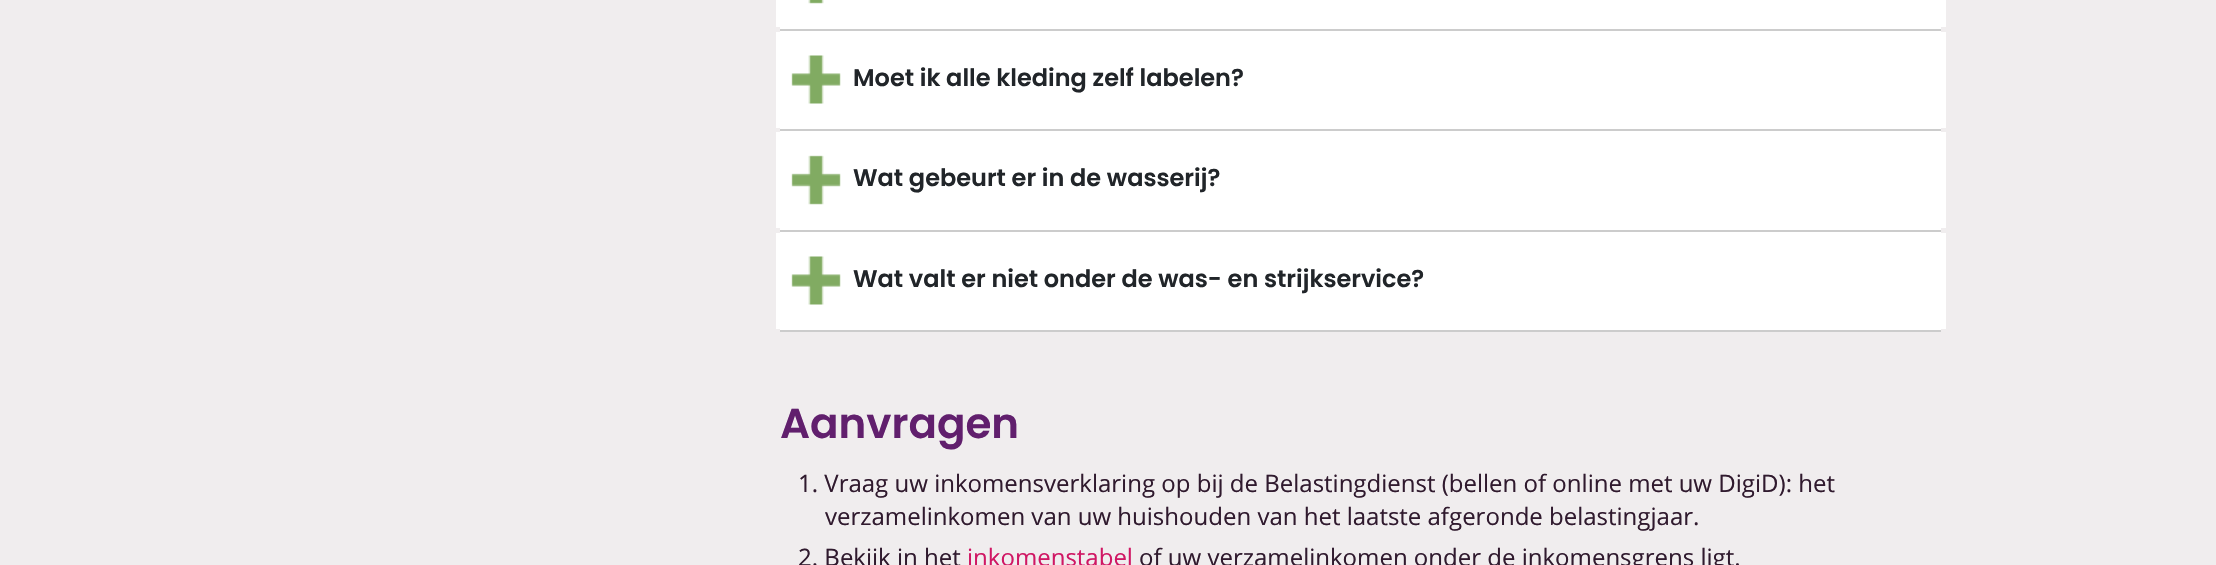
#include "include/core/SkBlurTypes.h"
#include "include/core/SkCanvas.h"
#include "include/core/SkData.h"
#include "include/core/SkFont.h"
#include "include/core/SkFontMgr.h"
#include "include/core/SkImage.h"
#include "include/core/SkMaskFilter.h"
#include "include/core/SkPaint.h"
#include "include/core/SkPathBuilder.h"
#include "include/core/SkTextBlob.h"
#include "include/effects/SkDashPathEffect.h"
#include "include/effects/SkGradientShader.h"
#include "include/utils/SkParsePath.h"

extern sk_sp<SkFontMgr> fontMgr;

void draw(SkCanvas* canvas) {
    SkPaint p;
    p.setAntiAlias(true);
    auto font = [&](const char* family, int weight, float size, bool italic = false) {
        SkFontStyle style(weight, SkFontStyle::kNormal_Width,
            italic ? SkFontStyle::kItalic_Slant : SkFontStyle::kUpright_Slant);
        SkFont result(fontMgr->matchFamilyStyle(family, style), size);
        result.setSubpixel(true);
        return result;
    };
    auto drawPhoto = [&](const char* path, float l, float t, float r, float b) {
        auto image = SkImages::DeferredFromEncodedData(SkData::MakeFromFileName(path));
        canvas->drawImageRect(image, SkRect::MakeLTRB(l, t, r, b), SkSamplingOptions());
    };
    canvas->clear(0xFFF0EDEE);
    p.setColor(0xFFFFFFFF);
    canvas->drawRect(SkRect::MakeLTRB(780, 0, 1941, 29), p);
    p.setStyle(SkPaint::kStroke_Style);
    p.setStrokeWidth(5);
    canvas->drawRect(SkRect::MakeLTRB(778.5f, -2.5f, 1943.5f, 24.5f), p);
    drawPhoto("media/1.png", 808, 0, 824, 4);
    p.setStyle(SkPaint::kFill_Style);
    canvas->drawRect(SkRect::MakeLTRB(780, 31, 1941, 129), p);
    p.setColor(0xFFCCCCCC);
    canvas->drawRect(SkRect::MakeLTRB(780, 29, 1941, 31), p);
    p.setStyle(SkPaint::kStroke_Style);
    p.setColor(0xFFFFFFFF);
    canvas->drawRect(SkRect::MakeLTRB(778.5f, 34.5f, 1943.5f, 125.5f), p);
    drawPhoto("media/2.png", 791, 55, 841, 104);
    auto font1 = font("Poppins", 600, 24);
    p.setStyle(SkPaint::kFill_Style);
    p.setColor(0xFF212529);
    canvas->drawString("Moet ik alle kleding zelf labelen?", 853, 86, font1, p);
    p.setColor(0xFFFFFFFF);
    canvas->drawRect(SkRect::MakeLTRB(780, 131, 1941, 230), p);
    p.setColor(0xFFCCCCCC);
    canvas->drawRect(SkRect::MakeLTRB(780, 129, 1941, 131), p);
    p.setStyle(SkPaint::kStroke_Style);
    p.setColor(0xFFFFFFFF);
    canvas->drawRect(SkRect::MakeLTRB(778.5f, 134.5f, 1943.5f, 225.5f), p);
    drawPhoto("media/3.png", 791, 155, 841, 205);
    p.setStyle(SkPaint::kFill_Style);
    p.setColor(0xFF212529);
    canvas->drawString("Wat gebeurt er in de wasserij?", 853, 186, font1, p);
    {
        const struct { float l, t, r, b; SkColor color; } items[] = {
            {780, 232, 1941, 330, 0xFFFFFFFF},
            {780, 230, 1941, 232, 0xFFCCCCCC},
            {780, 330, 1941, 332, 0xFFCCCCCC},
        };
        for (auto [l, t, r, b, color] : items) {
            p.setColor(color);
            canvas->drawRect(SkRect::MakeLTRB(l, t, r, b), p);
        }
    }
    p.setStyle(SkPaint::kStroke_Style);
    p.setColor(0xFFFFFFFF);
    canvas->drawRect(SkRect::MakeLTRB(778.5f, 235.5f, 1943.5f, 326.5f), p);
    drawPhoto("media/2.png", 791, 256, 841, 305);
    p.setStyle(SkPaint::kFill_Style);
    p.setColor(0xFF212529);
    canvas->drawString("Wat valt er niet onder de was- en strijkservice?", 853, 287, font1, p);
    auto font2 = font("Poppins", 600, 42);
    p.setColor(0xFF611F6D);
    canvas->drawString("Aanvragen", 780, 438, font2, p);
    auto font3 = font("Open Sans", 400, 24);
    p.setColor(0xFF301A2E);
    {
        const struct { const char* s; float x, y; } items[] = {
            {"1. Vraag uw inkomensverklaring op bij de Belastingdienst (bellen of online met uw DigiD): het", 798, 492},
            {"verzamelinkomen van uw huishouden van het laatste afgeronde belastingjaar.", 825, 525},
            {"2. Bekijk in het", 798, 566},
        };
        for (auto [s, x, y] : items) {
            canvas->drawString(s, x, y, font3, p);
        }
    }
    p.setColor(0xFFD01764);
    canvas->drawString("inkomenstabel", 967, 566, font3, p);
    p.setColor(0xFF301A2E);
    canvas->drawString("of uw verzamelinkomen onder de inkomensgrens ligt.", 1139, 566, font3, p);
}
